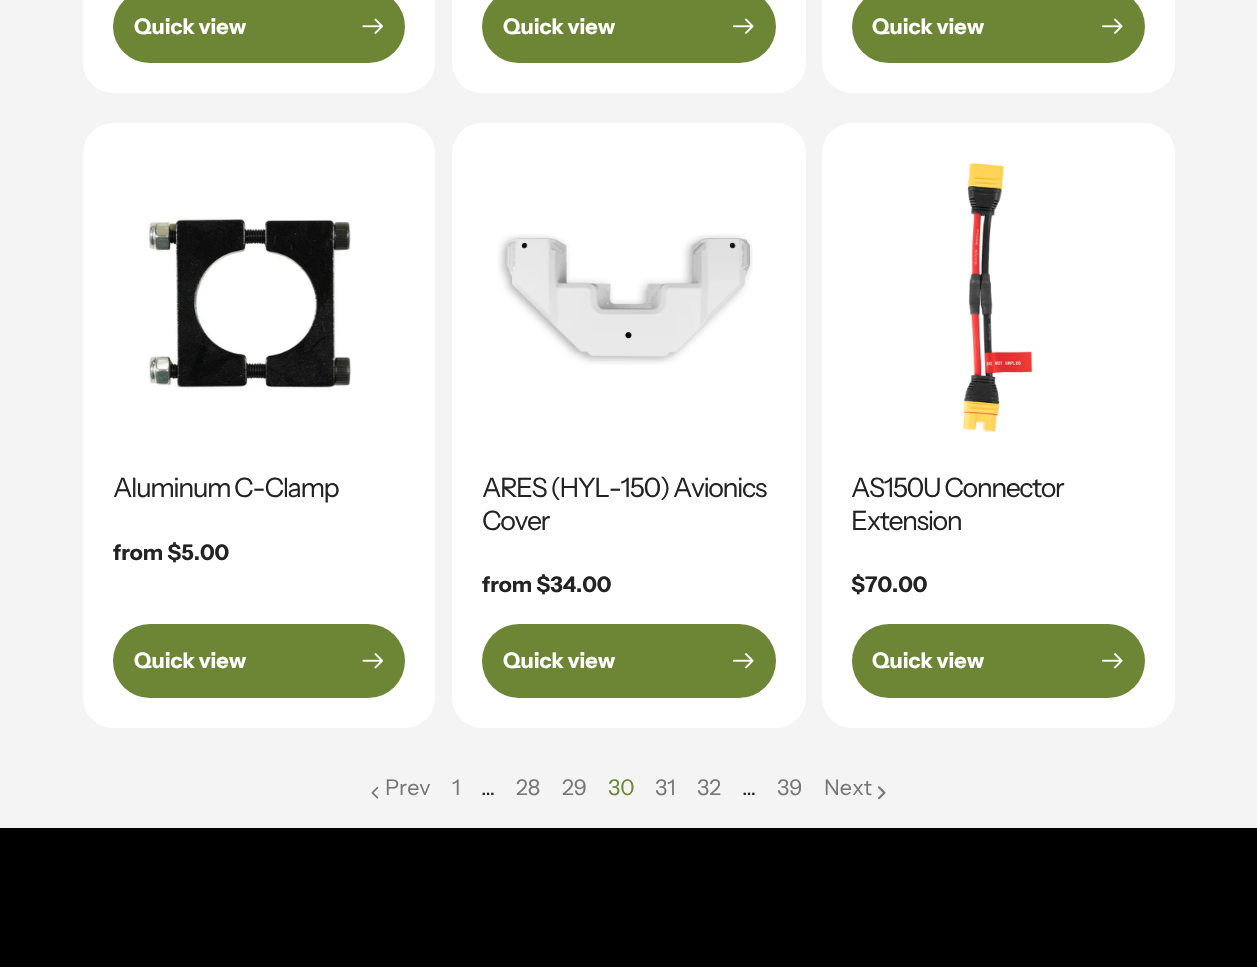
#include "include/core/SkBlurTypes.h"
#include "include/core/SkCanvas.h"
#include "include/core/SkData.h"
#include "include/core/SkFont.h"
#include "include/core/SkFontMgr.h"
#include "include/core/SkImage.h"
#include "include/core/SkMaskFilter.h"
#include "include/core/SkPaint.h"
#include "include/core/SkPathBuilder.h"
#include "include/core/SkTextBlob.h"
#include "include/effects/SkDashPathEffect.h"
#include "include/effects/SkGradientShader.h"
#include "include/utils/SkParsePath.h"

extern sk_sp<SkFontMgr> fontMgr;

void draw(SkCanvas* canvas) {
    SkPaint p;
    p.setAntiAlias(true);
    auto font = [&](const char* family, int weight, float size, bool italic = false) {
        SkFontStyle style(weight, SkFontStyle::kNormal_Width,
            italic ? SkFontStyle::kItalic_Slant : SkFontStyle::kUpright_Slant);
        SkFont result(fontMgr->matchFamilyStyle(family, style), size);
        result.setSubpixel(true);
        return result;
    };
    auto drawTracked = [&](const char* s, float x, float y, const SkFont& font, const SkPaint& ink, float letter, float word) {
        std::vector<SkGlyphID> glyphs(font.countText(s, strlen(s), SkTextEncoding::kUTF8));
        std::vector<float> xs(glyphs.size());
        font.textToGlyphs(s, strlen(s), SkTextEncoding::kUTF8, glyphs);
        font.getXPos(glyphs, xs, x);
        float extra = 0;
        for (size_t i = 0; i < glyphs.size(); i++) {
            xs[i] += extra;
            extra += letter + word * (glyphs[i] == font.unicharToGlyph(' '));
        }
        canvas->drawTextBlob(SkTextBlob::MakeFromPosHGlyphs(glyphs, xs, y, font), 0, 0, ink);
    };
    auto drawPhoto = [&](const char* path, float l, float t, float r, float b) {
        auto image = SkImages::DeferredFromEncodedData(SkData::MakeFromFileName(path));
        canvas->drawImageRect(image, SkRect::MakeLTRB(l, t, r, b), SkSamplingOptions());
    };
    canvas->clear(0xFFF4F4F4);
    p.setColor(0xFFFFFFFF);
    canvas->drawRoundRect(SkRect::MakeLTRB(83, -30, 435, 93), 30, 30, p);
    p.setColor(0xFF6C8636);
    canvas->drawRoundRect(SkRect::MakeLTRB(113, -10, 405, 63), 36.5f, 36.5f, p);
    auto font1 = font("Instrument Sans", 700, 21.5f);
    p.setColor(0xFFFFFFFF);
    canvas->drawString("Quick view", 134, 34, font1, p);
    drawPhoto("media/1.png", 362, 18, 383, 34);
    canvas->drawRoundRect(SkRect::MakeLTRB(452, -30, 806, 93), 30, 30, p);
    p.setColor(0xFF6C8636);
    canvas->drawRoundRect(SkRect::MakeLTRB(482, -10, 776, 63), 36.5f, 36.5f, p);
    p.setColor(0xFFFFFFFF);
    canvas->drawString("Quick view", 503, 34, font1, p);
    drawPhoto("media/2.png", 733, 18, 754, 34);
    canvas->drawRoundRect(SkRect::MakeLTRB(822, -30, 1175, 93), 30, 30, p);
    p.setColor(0xFF6C8636);
    canvas->drawRoundRect(SkRect::MakeLTRB(852, -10, 1145, 63), 36.5f, 36.5f, p);
    p.setColor(0xFFFFFFFF);
    canvas->drawString("Quick view", 872, 34, font1, p);
    drawPhoto("media/2.png", 1102, 18, 1123, 34);
    canvas->drawRoundRect(SkRect::MakeLTRB(83, 123, 435, 728), 30, 30, p);
    drawPhoto("media/3.png", 147, 217, 353, 390);
    auto font2 = font("Instrument Sans", 400, 26.75f);
    p.setColor(0xFF232323);
    drawTracked("Aluminum C-Clamp", 113, 497, font2, p, -1.5f, 0);
    canvas->drawString("from $5.00", 113, 560, font1, p);
    p.setColor(0xFF6C8636);
    canvas->drawRoundRect(SkRect::MakeLTRB(113, 624, 405, 698), 37, 37, p);
    p.setColor(0xFFFFFFFF);
    canvas->drawString("Quick view", 134, 668, font1, p);
    drawPhoto("media/4.png", 362, 653, 383, 669);
    canvas->drawRoundRect(SkRect::MakeLTRB(452, 123, 806, 728), 30, 30, p);
    drawPhoto("media/5.png", 497, 234, 753, 365);
    p.setColor(0xFF232323);
    drawTracked("ARES (HYL-150) Avionics", 482, 497, font2, p, -1.5f, 0);
    drawTracked("Cover", 482, 530, font2, p, -1.5f, 0);
    canvas->drawString("from $34.00", 482, 592, font1, p);
    p.setColor(0xFF6C8636);
    canvas->drawRoundRect(SkRect::MakeLTRB(482, 624, 776, 698), 37, 37, p);
    p.setColor(0xFFFFFFFF);
    canvas->drawString("Quick view", 503, 668, font1, p);
    drawPhoto("media/6.png", 733, 653, 754, 669);
    canvas->drawRoundRect(SkRect::MakeLTRB(822, 123, 1175, 728), 30, 30, p);
    drawPhoto("media/7.png", 962, 163, 1033, 433);
    p.setColor(0xFF232323);
    drawTracked("AS150U Connector", 851, 497, font2, p, -1.5f, 0);
    drawTracked("Extension", 851, 530, font2, p, -1.5f, 0);
    canvas->drawString("$70.00", 851, 592, font1, p);
    p.setColor(0xFF6C8636);
    canvas->drawRoundRect(SkRect::MakeLTRB(852, 624, 1145, 698), 37, 37, p);
    p.setColor(0xFFFFFFFF);
    canvas->drawString("Quick view", 872, 668, font1, p);
    drawPhoto("media/6.png", 1102, 653, 1123, 669);
    drawPhoto("media/8.png", 371, 786, 379, 799);
    auto font3 = font("Instrument Sans", 400, 21.5f);
    p.setColor(0xFF777777);
    canvas->drawString("Prev", 385, 795, font3, p);
    canvas->drawString("1", 452, 795, font3, p);
    p.setColor(0xFF232323);
    canvas->drawString("…", 481, 795, font3, p);
    p.setColor(0xFF777777);
    canvas->drawString("28", 516, 795, font3, p);
    canvas->drawString("29", 562, 795, font3, p);
    p.setColor(0xFF6C8636);
    canvas->drawString("30", 608, 795, font3, p);
    p.setColor(0xFF777777);
    canvas->drawString("31", 655, 795, font3, p);
    canvas->drawString("32", 697, 795, font3, p);
    p.setColor(0xFF232323);
    canvas->drawString("…", 742, 795, font3, p);
    p.setColor(0xFF777777);
    canvas->drawString("39", 777, 795, font3, p);
    canvas->drawString("Next", 824, 795, font3, p);
    drawPhoto("media/9.png", 877, 786, 886, 800);
    p.setColor(0xFF000000);
    canvas->drawRect(SkRect::MakeLTRB(0, 828, 1257, 967), p);
}
